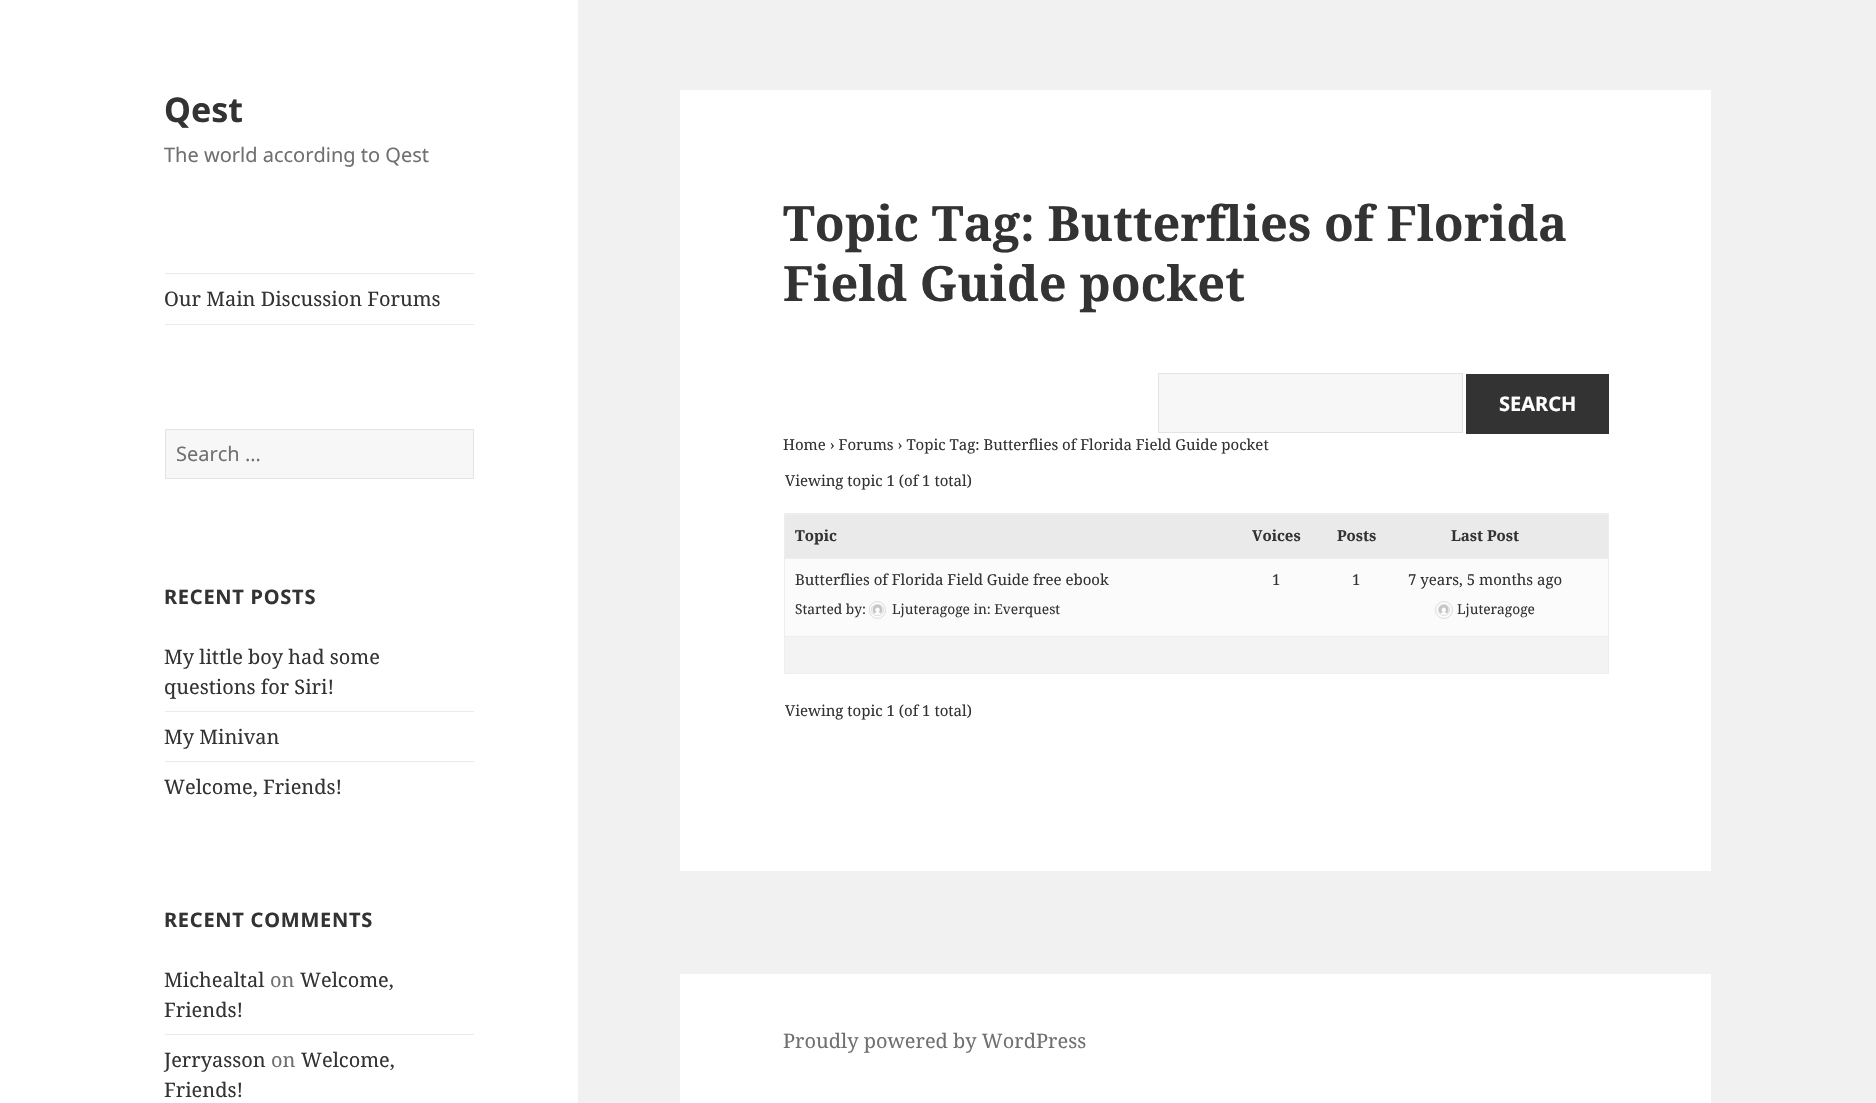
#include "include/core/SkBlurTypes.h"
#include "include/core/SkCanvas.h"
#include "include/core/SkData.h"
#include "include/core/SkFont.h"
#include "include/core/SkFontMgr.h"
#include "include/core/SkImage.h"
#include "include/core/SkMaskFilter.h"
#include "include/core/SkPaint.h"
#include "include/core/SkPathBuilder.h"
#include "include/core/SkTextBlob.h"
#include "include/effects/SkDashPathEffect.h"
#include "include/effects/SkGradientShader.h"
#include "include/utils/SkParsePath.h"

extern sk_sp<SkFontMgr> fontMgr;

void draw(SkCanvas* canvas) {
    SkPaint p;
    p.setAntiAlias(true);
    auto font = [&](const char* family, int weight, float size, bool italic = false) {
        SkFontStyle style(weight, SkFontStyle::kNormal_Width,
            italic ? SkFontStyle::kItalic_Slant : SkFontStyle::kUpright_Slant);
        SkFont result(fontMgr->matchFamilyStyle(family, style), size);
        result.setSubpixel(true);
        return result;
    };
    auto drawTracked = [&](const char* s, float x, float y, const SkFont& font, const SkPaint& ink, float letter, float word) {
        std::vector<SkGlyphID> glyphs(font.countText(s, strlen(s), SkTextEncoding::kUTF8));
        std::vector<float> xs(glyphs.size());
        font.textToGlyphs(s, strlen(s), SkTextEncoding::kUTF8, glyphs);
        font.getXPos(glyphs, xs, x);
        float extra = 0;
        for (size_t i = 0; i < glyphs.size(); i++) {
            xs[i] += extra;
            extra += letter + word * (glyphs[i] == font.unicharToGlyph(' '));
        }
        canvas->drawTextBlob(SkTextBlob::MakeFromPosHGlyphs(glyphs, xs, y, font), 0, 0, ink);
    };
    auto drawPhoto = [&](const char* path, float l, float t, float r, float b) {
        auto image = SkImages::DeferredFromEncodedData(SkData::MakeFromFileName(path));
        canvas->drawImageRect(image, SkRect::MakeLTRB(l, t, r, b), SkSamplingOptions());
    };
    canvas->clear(0xFFF1F1F1);
    p.setColor(0xFFFFFFFF);
    canvas->drawRect(SkRect::MakeLTRB(0, 0, 578, 1103), p);
    auto font1 = font("Noto Sans", 700, 34);
    p.setColor(0xFF333333);
    canvas->drawString("Qest", 164, 122, font1, p);
    auto font2 = font("Noto Sans", 400, 20);
    p.setColor(0xFF707070);
    canvas->drawString("The world according to Qest", 164, 162, font2, p);
    p.setColor(0xFFEBEBEB);
    canvas->drawRect(SkRect::MakeLTRB(165, 273, 474, 274), p);
    canvas->drawRect(SkRect::MakeLTRB(165, 324, 474, 325), p);
    auto font3 = font("Noto Serif", 400, 20);
    p.setColor(0xFF333333);
    canvas->drawString("Our Main Discussion Forums", 164, 306, font3, p);
    p.setColor(0xFFF7F7F7);
    canvas->drawRect(SkRect::MakeLTRB(165.5f, 429.5f, 473.5f, 478.5f), p);
    p.setStyle(SkPaint::kStroke_Style);
    p.setStrokeWidth(1);
    p.setColor(0xFFE3E3E3);
    canvas->drawRect(SkRect::MakeLTRB(165.5f, 429.5f, 473.5f, 478.5f), p);
    p.setStyle(SkPaint::kFill_Style);
    p.setColor(0xFF707070);
    canvas->drawString("Search …", 176, 461, font2, p);
    auto font4 = font("Noto Sans", 700, 20);
    p.setColor(0xFF333333);
    drawTracked("RECENT POSTS", 164, 604, font4, p, 0.75f, 0);
    canvas->drawString("My little boy had some", 164, 664, font3, p);
    canvas->drawString("questions for Siri!", 164, 694, font3, p);
    p.setColor(0xFFEBEBEB);
    canvas->drawRect(SkRect::MakeLTRB(165, 711, 474, 712), p);
    p.setColor(0xFF333333);
    canvas->drawString("My Minivan", 164, 744, font3, p);
    p.setColor(0xFFEBEBEB);
    canvas->drawRect(SkRect::MakeLTRB(165, 761, 474, 762), p);
    p.setColor(0xFF333333);
    canvas->drawString("Welcome, Friends!", 164, 794, font3, p);
    drawTracked("RECENT COMMENTS", 164, 927, font4, p, 0.75f, 0);
    canvas->drawString("Michealtal", 164, 987, font3, p);
    p.setColor(0xFF707070);
    canvas->drawString("on", 270, 987, font3, p);
    p.setColor(0xFF333333);
    canvas->drawString("Welcome,", 300, 987, font3, p);
    canvas->drawString("Friends!", 164, 1017, font3, p);
    p.setColor(0xFFEBEBEB);
    canvas->drawRect(SkRect::MakeLTRB(165, 1034, 474, 1035), p);
    p.setColor(0xFF333333);
    canvas->drawString("Jerryasson", 164, 1067, font3, p);
    p.setColor(0xFF707070);
    canvas->drawString("on", 271, 1067, font3, p);
    p.setColor(0xFF333333);
    canvas->drawString("Welcome,", 301, 1067, font3, p);
    canvas->drawString("Friends!", 164, 1097, font3, p);
    p.setColor(0xFFFFFFFF);
    canvas->drawRect(SkRect::MakeLTRB(680, 90, 1711, 871), p);
    auto font5 = font("Noto Serif", 700, 48.75f);
    p.setColor(0xFF333333);
    canvas->drawString("Topic Tag: Butterflies of Florida", 783, 241, font5, p);
    canvas->drawString("Field Guide pocket", 783, 301, font5, p);
    p.setColor(0xFFF7F7F7);
    canvas->drawRect(SkRect::MakeLTRB(1158.5f, 373.5f, 1462.5f, 432.5f), p);
    p.setStyle(SkPaint::kStroke_Style);
    p.setColor(0xFFE3E3E3);
    canvas->drawRect(SkRect::MakeLTRB(1158.5f, 373.5f, 1462.5f, 432.5f), p);
    p.setStyle(SkPaint::kFill_Style);
    p.setColor(0xFF333333);
    canvas->drawRect(SkRect::MakeLTRB(1466, 374, 1609, 434), p);
    p.setColor(0xFFFFFFFF);
    canvas->drawString("SEARCH", 1499, 411, font4, p);
    auto font6 = font("Noto Serif", 400, 15);
    p.setColor(0xFF333333);
    canvas->drawString("Home › Forums › Topic Tag: Butterflies of Florida Field Guide pocket", 783, 450, font6, p);
    canvas->drawString("Viewing topic 1 (of 1 total)", 785, 486, font6, p);
    p.setStyle(SkPaint::kStroke_Style);
    p.setColor(0xFFEEEEEE);
    canvas->drawRect(SkRect::MakeLTRB(784.5f, 513.5f, 1608.5f, 673.5f), p);
    p.setStyle(SkPaint::kFill_Style);
    p.setColor(0xFFEAEAEA);
    canvas->drawRect(SkRect::MakeLTRB(785, 515, 1608, 558), p);
    p.setColor(0xFFEEEEEE);
    canvas->drawRect(SkRect::MakeLTRB(785, 514, 1608, 515), p);
    canvas->save();
    canvas->clipRect(SkRect::MakeLTRB(795, 525, 1598, 548));
    auto font7 = font("Noto Serif", 700, 15);
    p.setColor(0xFF333333);
    canvas->drawString("Topic", 795, 541, font7, p);
    canvas->restore();
    {
        const struct { const char* s; float x, y; } items[] = {
            {"Voices", 1252, 541},
            {"Posts", 1337, 541},
            {"Last Post", 1451, 541},
        };
        for (auto [s, x, y] : items) {
            canvas->drawString(s, x, y, font7, p);
        }
    }
    p.setColor(0xFFFBFBFB);
    canvas->drawRect(SkRect::MakeLTRB(785, 559, 1608, 636), p);
    p.setColor(0xFFEEEEEE);
    canvas->drawRect(SkRect::MakeLTRB(785, 558, 1608, 559), p);
    p.setColor(0xFF333333);
    canvas->drawString("Butterflies of Florida Field Guide free ebook", 795, 585, font6, p);
    auto font8 = font("Noto Serif", 400, 13.75f);
    canvas->drawString("Started by:", 795, 614, font8, p);
    p.setStyle(SkPaint::kStroke_Style);
    p.setColor(0xFFDDDDDD);
    canvas->drawRoundRect(SkRect::MakeLTRB(869.5f, 601.5f, 885.5f, 618.5f), 8, 8, p);
    canvas->drawRoundRect(SkRect::MakeLTRB(871.5f, 604.5f, 883.5f, 615.5f), 5.5f, 5.5f, p);
    drawPhoto("media/1.png", 872, 605, 883, 614);
    p.setStyle(SkPaint::kFill_Style);
    p.setColor(0xFF333333);
    canvas->drawString("Ljuteragoge in: Everquest", 892, 614, font8, p);
    {
        const struct { const char* s; float x, y; } items[] = {
            {"1", 1272, 585},
            {"1", 1352, 585},
            {"7 years, 5 months ago", 1408, 585},
        };
        for (auto [s, x, y] : items) {
            canvas->drawString(s, x, y, font6, p);
        }
    }
    p.setStyle(SkPaint::kStroke_Style);
    p.setColor(0xFFDDDDDD);
    canvas->drawCircle(1444, 610, 8.5f, p);
    canvas->drawCircle(1444, 610, 5.5f, p);
    drawPhoto("media/2.png", 1439, 605, 1449, 614);
    p.setStyle(SkPaint::kFill_Style);
    p.setColor(0xFF333333);
    canvas->drawString("Ljuteragoge", 1457, 614, font8, p);
    p.setColor(0xFFF3F3F3);
    canvas->drawRect(SkRect::MakeLTRB(785, 637, 1608, 673), p);
    p.setColor(0xFFEEEEEE);
    canvas->drawRect(SkRect::MakeLTRB(785, 636, 1608, 637), p);
    p.setColor(0xFF333333);
    canvas->drawString("Viewing topic 1 (of 1 total)", 785, 716, font6, p);
    p.setColor(0xFFFFFFFF);
    canvas->drawRect(SkRect::MakeLTRB(680, 974, 1711, 1103), p);
    p.setColor(0xFF707070);
    canvas->drawString("Proudly powered by WordPress", 783, 1048, font3, p);
}
